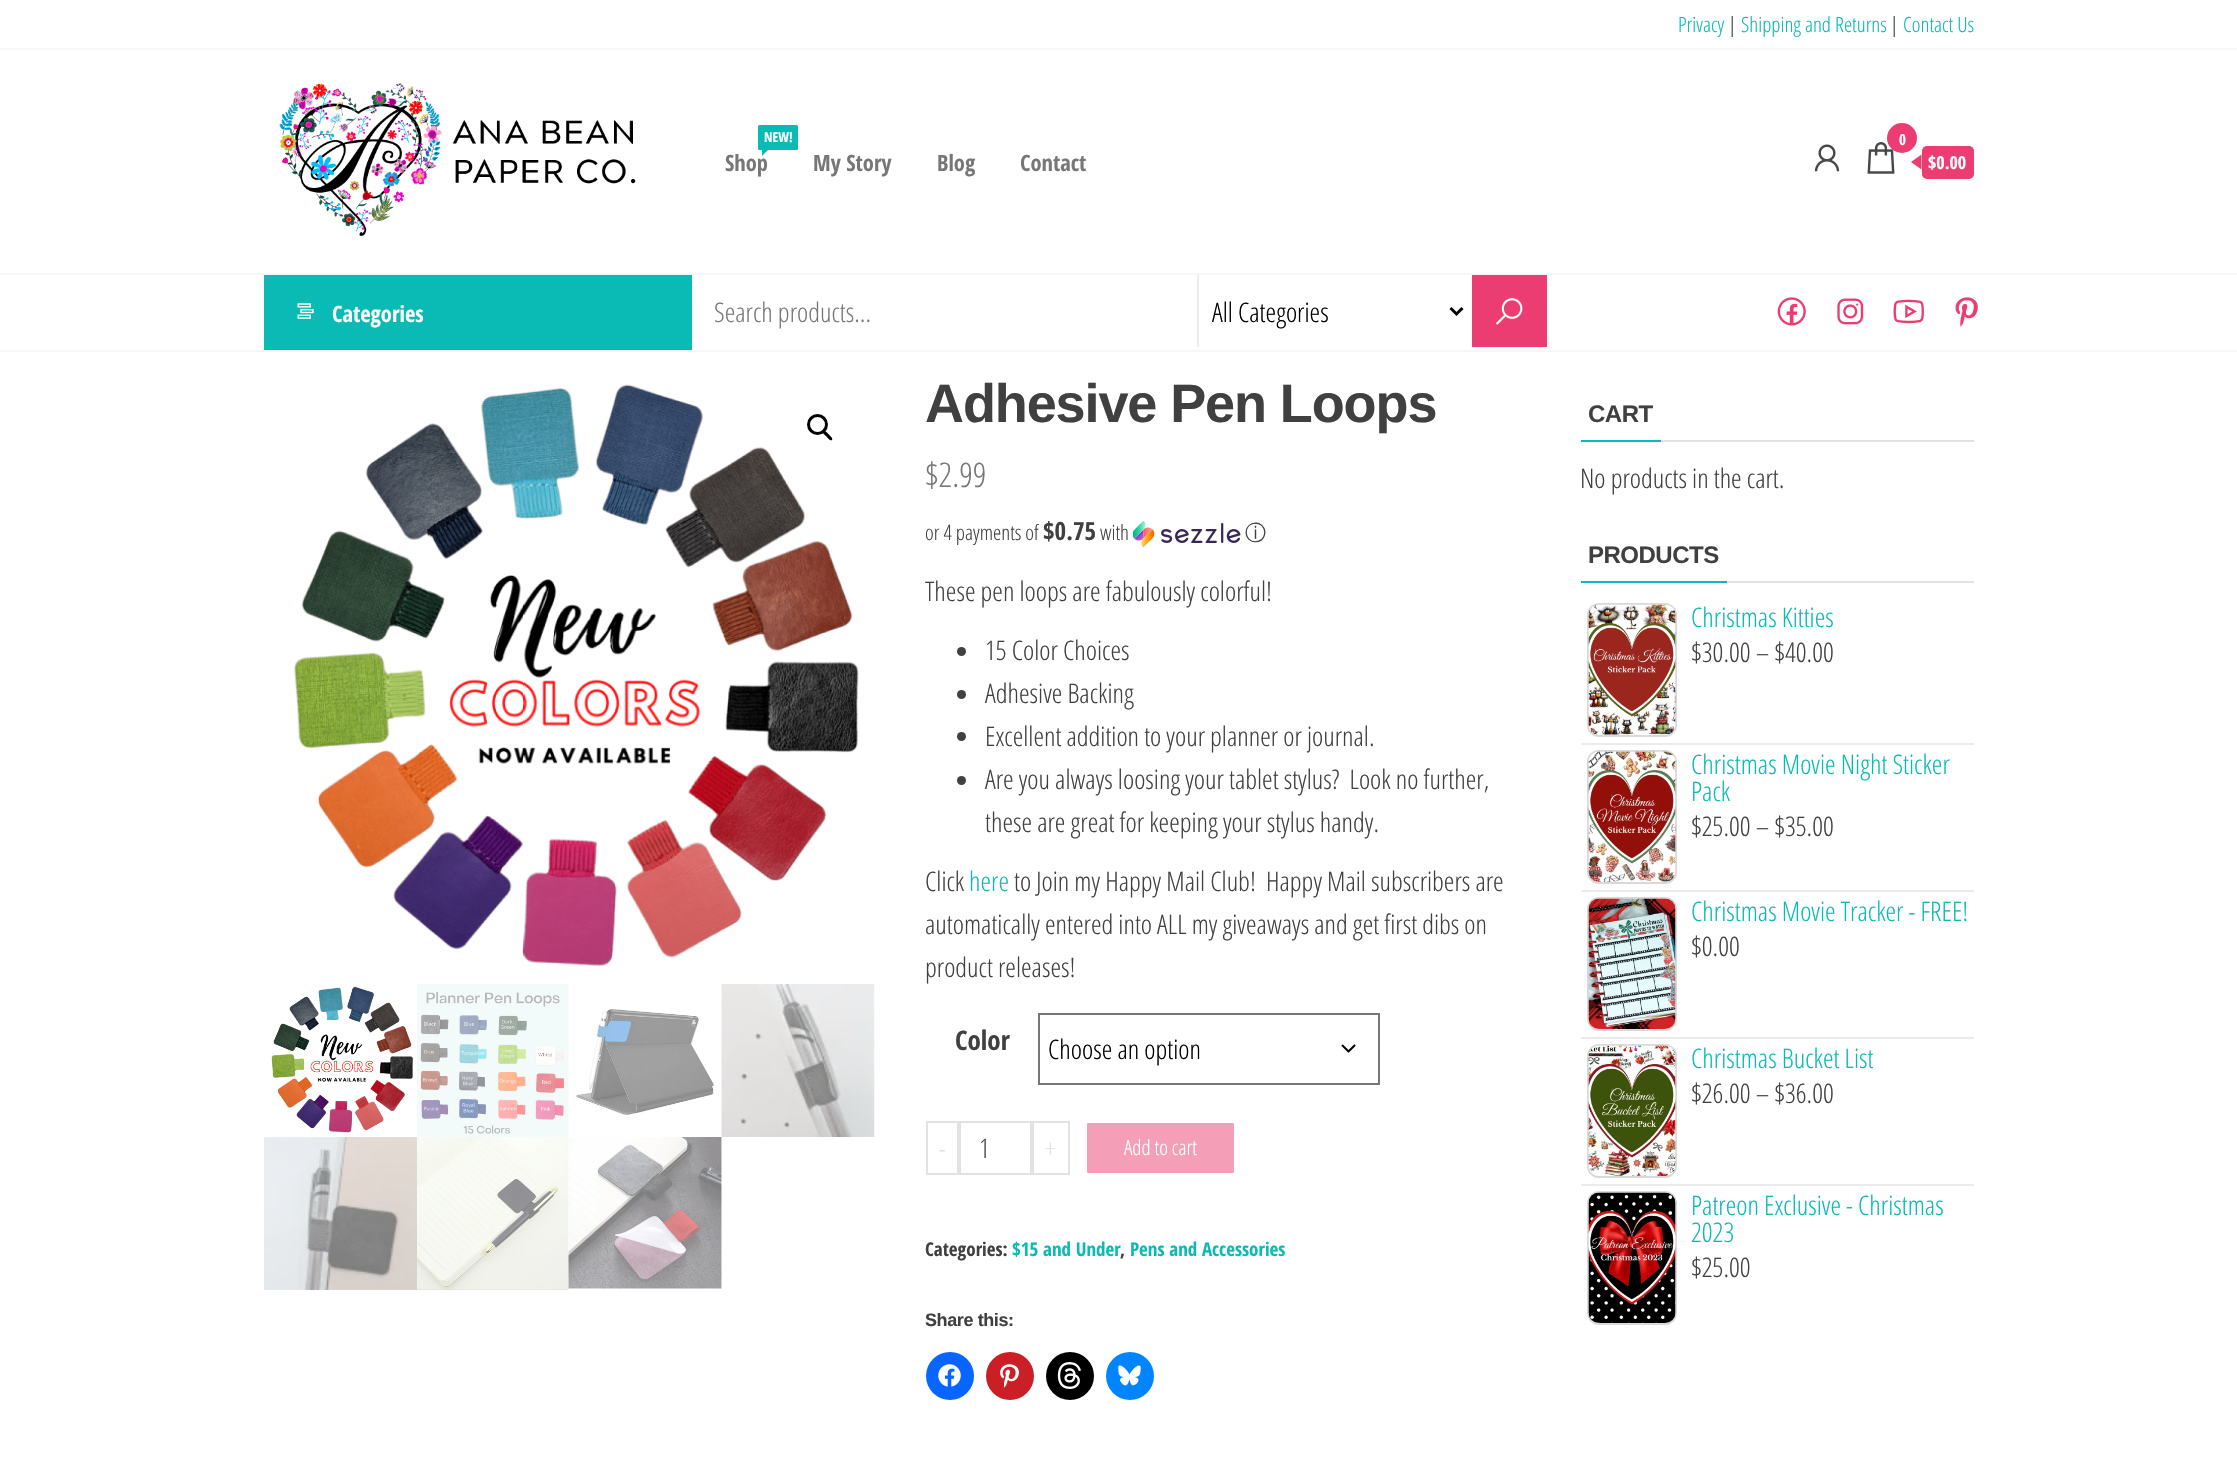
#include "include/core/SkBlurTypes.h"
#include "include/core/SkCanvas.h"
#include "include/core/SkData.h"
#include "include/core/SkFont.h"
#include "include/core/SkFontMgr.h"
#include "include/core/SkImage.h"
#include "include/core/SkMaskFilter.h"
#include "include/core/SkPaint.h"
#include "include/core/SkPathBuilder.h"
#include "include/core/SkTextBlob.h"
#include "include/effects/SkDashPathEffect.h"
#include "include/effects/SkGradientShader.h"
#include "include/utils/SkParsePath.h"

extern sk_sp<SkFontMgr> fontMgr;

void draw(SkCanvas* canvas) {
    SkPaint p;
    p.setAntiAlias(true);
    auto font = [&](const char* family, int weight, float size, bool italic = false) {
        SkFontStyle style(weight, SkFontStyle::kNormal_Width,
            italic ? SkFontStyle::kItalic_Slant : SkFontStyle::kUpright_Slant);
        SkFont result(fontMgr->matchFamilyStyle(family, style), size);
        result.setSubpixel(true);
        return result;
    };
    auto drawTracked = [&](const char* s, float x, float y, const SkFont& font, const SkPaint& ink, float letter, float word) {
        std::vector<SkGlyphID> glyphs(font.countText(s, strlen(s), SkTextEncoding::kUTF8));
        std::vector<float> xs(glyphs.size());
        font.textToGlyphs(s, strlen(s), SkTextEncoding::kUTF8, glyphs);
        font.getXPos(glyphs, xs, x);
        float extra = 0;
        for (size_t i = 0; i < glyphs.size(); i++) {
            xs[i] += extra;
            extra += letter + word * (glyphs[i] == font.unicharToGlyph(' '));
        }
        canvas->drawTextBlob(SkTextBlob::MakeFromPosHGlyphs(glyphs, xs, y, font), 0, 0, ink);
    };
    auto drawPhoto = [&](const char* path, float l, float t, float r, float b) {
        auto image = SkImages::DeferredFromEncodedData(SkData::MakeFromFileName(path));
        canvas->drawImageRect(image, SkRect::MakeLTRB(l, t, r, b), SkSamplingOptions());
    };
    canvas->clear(0xFFFFFFFF);
    p.setColor(0xFFF6F6F6);
    canvas->drawRect(SkRect::MakeLTRB(0, 48, 2237, 50), p);
    auto font1 = font("Open Sans Condensed", 300, 21);
    p.setColor(0xFF0ABAB5);
    canvas->drawString("Privacy", 1678, 32, font1, p);
    p.setColor(0xFF334142);
    canvas->drawString("|", 1728, 32, font1, p);
    p.setColor(0xFF0ABAB5);
    canvas->drawString("Shipping and Returns", 1741, 32, font1, p);
    p.setColor(0xFF334142);
    canvas->drawString("|", 1890, 32, font1, p);
    p.setColor(0xFF0ABAB5);
    canvas->drawString("Contact Us", 1903, 32, font1, p);
    p.setColor(0xFFF6F6F6);
    canvas->drawRect(SkRect::MakeLTRB(0, 273, 2237, 275), p);
    drawPhoto("media/1.png", 279, 83, 636, 236);
    p.setColor(0xFF0ABAB5);
    canvas->drawRoundRect(SkRect::MakeLTRB(758, 125, 798, 150), 1.5f, 1.5f, p);
    auto font2 = font("Open Sans Condensed", 700, 13.5f);
    p.setColor(0xFFFFFFFF);
    canvas->drawString("NEW!", 764, 142, font2, p);
    auto font3 = font("Open Sans Condensed", 700, 22.5f);
    p.setColor(0xFF777777);
    canvas->drawString("Shop", 725, 171, font3, p);
    p.setColor(0xFF0ABAB5);
    canvas->drawPath(SkPathBuilder().moveTo(762, 148.5f).lineTo(769.5f, 148.5f).lineTo(762, 156).close().detach(), p);
    p.setColor(0xFF777777);
    {
        const struct { const char* s; float x, y; } items[] = {
            {"My Story", 813, 171},
            {"Blog", 937, 171},
            {"Contact", 1020, 171},
        };
        for (auto [s, x, y] : items) {
            canvas->drawString(s, x, y, font3, p);
        }
    }
    drawPhoto("media/2.png", 1814, 144, 1840, 172);
    drawPhoto("media/3.png", 1867, 142, 1895, 174);
    p.setColor(0xFFEB3D71);
    canvas->drawCircle(1902, 138, 15, p);
    auto font4 = font("Open Sans Condensed", 700, 15);
    p.setColor(0xFFFFFFFF);
    canvas->drawString("0", 1899, 145, font4, p);
    p.setColor(0xFFEB3D71);
    canvas->drawRoundRect(SkRect::MakeLTRB(1922, 146, 1974, 179), 5, 5, p);
    canvas->drawPath(SkPathBuilder().moveTo(1921.5f, 154.5f).lineTo(1921.5f, 169.5f).lineTo(1911, 162).close().detach(), p);
    auto font5 = font("Open Sans Condensed", 700, 18);
    p.setColor(0xFFFFFFFF);
    canvas->drawString("$0.00", 1928, 169, font5, p);
    p.setColor(0xFFF6F6F6);
    canvas->drawRect(SkRect::MakeLTRB(0, 350, 2237, 352), p);
    p.setColor(0xFF0ABAB5);
    canvas->drawRect(SkRect::MakeLTRB(264, 275, 692, 350), p);
    drawPhoto("media/4.png", 297, 303, 314, 319);
    p.setColor(0xFFFFFFFF);
    canvas->drawString("Categories", 332, 322, font3, p);
    auto font6 = font("Open Sans Condensed", 300, 27);
    p.setColor(0xFF777777);
    canvas->drawString("Search products...", 714, 322, font6, p);
    p.setColor(0xFFECECEC);
    canvas->drawRect(SkRect::MakeLTRB(1197, 275, 1199, 347), p);
    p.setStyle(SkPaint::kStroke_Style);
    p.setStrokeWidth(3);
    p.setColor(0xFF000000);
    canvas->drawPath(SkPathBuilder().moveTo(1450.5f, 308).lineTo(1456.5f, 314).lineTo(1462.5f, 308).detach(), p);
    p.setStyle(SkPaint::kFill_Style);
    canvas->drawString("All Categories", 1212, 322, font6, p);
    p.setColor(0xFFEB3D71);
    canvas->drawRect(SkRect::MakeLTRB(1472, 275, 1547, 347), p);
    drawPhoto("media/5.png", 1496, 298, 1523, 325);
    drawPhoto("media/6.png", 1777, 297, 1806, 326);
    drawPhoto("media/7.png", 1837, 298, 1864, 325);
    drawPhoto("media/8.png", 1893, 299, 1924, 324);
    drawPhoto("media/9.png", 1955, 297, 1978, 327);
    drawPhoto("media/10.png", 294, 374, 875, 984);
    p.setStyle(SkPaint::kStroke_Style);
    p.setColor(0xFF000000);
    canvas->drawCircle(817.5f, 424.5f, 9, p);
    p.setStyle(SkPaint::kFill_Style);
    canvas->drawPath(SkPathBuilder().moveTo(823.5f, 431.5f).cubicTo(825, 429.5f, 828, 433.5f, 829, 434.5f).cubicTo(829.5f, 435.5f, 833.5f, 438, 832, 440).cubicTo(830, 441.5f, 827.5f, 437.5f, 826.5f, 436.5f).cubicTo(825.5f, 435.5f, 821.5f, 433, 823.5f, 431.5f).close().detach(), p);
    drawPhoto("media/11.png", 271, 986, 413, 1133);
    drawPhoto("media/12.png", 417, 984, 569, 1137);
    drawPhoto("media/13.png", 576, 1009, 714, 1115);
    drawPhoto("media/14.png", 721, 984, 875, 1137);
    drawPhoto("media/15.png", 264, 1137, 417, 1290);
    drawPhoto("media/16.png", 417, 1137, 569, 1290);
    drawPhoto("media/17.png", 568, 1137, 722, 1289);
    auto font7 = font("Liberation Sans", 700, 54);
    p.setColor(0xFF404040);
    drawTracked("Adhesive Pen Loops", 925, 422, font7, p, -1.1f, 0);
    auto font8 = font("Open Sans Condensed", 300, 34);
    p.setColor(0xFF777777);
    canvas->drawString("$2.99", 925, 487, font8, p);
    p.setColor(0xFF404040);
    canvas->drawString("or 4 payments of", 925, 540, font1, p);
    auto font9 = font("Open Sans Condensed", 700, 25);
    canvas->drawString("$0.75", 1043, 540, font9, p);
    canvas->drawString("with", 1100, 540, font1, p);
    drawPhoto("media/18.png", 1133, 521, 1241, 548);
    auto font10 = font("WenQuanYi Zen Hei", 500, 21);
    canvas->drawString("ⓘ", 1245, 540, font10, p);
    canvas->drawString("These pen loops are fabulously colorful!", 925, 601, font6, p);
    canvas->drawCircle(961.5f, 651.5f, 4.5f, p);
    canvas->drawString("15 Color Choices", 985, 660, font6, p);
    canvas->drawCircle(961.5f, 694.5f, 4.5f, p);
    canvas->drawString("Adhesive Backing", 985, 703, font6, p);
    canvas->drawCircle(961.5f, 736.5f, 4.5f, p);
    canvas->drawString("Excellent addition to your planner or journal.", 985, 746, font6, p);
    canvas->drawCircle(961.5f, 780.5f, 4.5f, p);
    {
        const struct { const char* s; float x, y; } items[] = {
            {"Are you always loosing your tablet stylus?  Look no further,", 985, 789},
            {"these are great for keeping your stylus handy.", 985, 832},
            {"Click", 925, 891},
        };
        for (auto [s, x, y] : items) {
            canvas->drawString(s, x, y, font6, p);
        }
    }
    p.setColor(0xFF0ABAB5);
    canvas->drawString("here", 969, 891, font6, p);
    p.setColor(0xFF404040);
    {
        const struct { const char* s; float x, y; } items[] = {
            {"to Join my Happy Mail Club!  Happy Mail subscribers are", 1014, 891},
            {"automatically entered into ALL my giveaways and get first dibs on", 925, 934},
            {"product releases!", 925, 977},
        };
        for (auto [s, x, y] : items) {
            canvas->drawString(s, x, y, font6, p);
        }
    }
    auto font11 = font("Open Sans Condensed", 700, 27);
    canvas->drawString("Color", 955, 1050, font11, p);
    p.setStyle(SkPaint::kStroke_Style);
    p.setStrokeWidth(2);
    p.setStrokeCap(SkPaint::kRound_Cap);
    p.setStrokeJoin(SkPaint::kRound_Join);
    p.setColor(0xFF000000);
    canvas->drawPath(SkPathBuilder().moveTo(1342.5f, 1045.5f).lineTo(1348.5f, 1051.5f).lineTo(1354.5f, 1045.5f).detach(), p);
    p.setStrokeCap(SkPaint::kButt_Cap);
    p.setStrokeJoin(SkPaint::kMiter_Join);
    p.setColor(0xFF767676);
    canvas->drawRect(SkRect::MakeLTRB(1039, 1014, 1379, 1084), p);
    p.setStyle(SkPaint::kFill_Style);
    p.setColor(0xFF000000);
    canvas->drawString("Choose an option", 1048, 1059, font6, p);
    p.setStyle(SkPaint::kStroke_Style);
    p.setColor(0xFFE2E2E2);
    canvas->drawRect(SkRect::MakeLTRB(927, 1122, 958, 1174), p);
    p.setStyle(SkPaint::kFill_Style);
    canvas->drawString("-", 939, 1158, font6, p);
    p.setStyle(SkPaint::kStroke_Style);
    canvas->drawRect(SkRect::MakeLTRB(960, 1122, 1031, 1174), p);
    p.setStyle(SkPaint::kFill_Style);
    p.setColor(0xFF464A4C);
    canvas->drawString("1", 979, 1158, font6, p);
    p.setStyle(SkPaint::kStroke_Style);
    p.setColor(0xFFE2E2E2);
    canvas->drawRect(SkRect::MakeLTRB(1033, 1122, 1069, 1174), p);
    p.setStyle(SkPaint::kFill_Style);
    canvas->drawString("+", 1045, 1158, font6, p);
    p.setColor(0xFFF59EB8);
    canvas->drawRoundRect(SkRect::MakeLTRB(1086, 1122, 1235, 1174), 2, 2, p);
    p.setStyle(SkPaint::kStroke_Style);
    p.setColor(0xFFFFFFFF);
    canvas->drawRoundRect(SkRect::MakeLTRB(1086, 1122, 1235, 1174), 2, 2, p);
    p.setStyle(SkPaint::kFill_Style);
    canvas->drawString("Add to cart", 1124, 1155, font1, p);
    auto font12 = font("Open Sans Condensed", 700, 19);
    p.setColor(0xFF404040);
    canvas->drawString("Categories:", 925, 1256, font12, p);
    p.setColor(0xFF0ABAB5);
    canvas->drawString("$15 and Under", 1012, 1256, font12, p);
    p.setColor(0xFF404040);
    canvas->drawString(",", 1120, 1256, font12, p);
    p.setColor(0xFF0ABAB5);
    canvas->drawString("Pens and Accessories", 1130, 1256, font12, p);
    auto font13 = font("Liberation Sans", 700, 18);
    p.setColor(0xFF404040);
    drawTracked("Share this:", 925, 1326, font13, p, -0.4f, 0);
    p.setColor(0xFF0866FF);
    canvas->drawCircle(950, 1376, 24, p);
    drawPhoto("media/19.png", 938, 1364, 961, 1387);
    p.setColor(0xFFCA1F27);
    canvas->drawCircle(1010, 1376, 24, p);
    drawPhoto("media/20.png", 1000, 1364, 1019, 1388);
    p.setColor(0xFF000000);
    canvas->drawCircle(1070, 1376, 24, p);
    drawPhoto("media/21.png", 1057, 1362, 1081, 1389);
    p.setColor(0xFF0085FF);
    canvas->drawCircle(1130, 1376, 24, p);
    drawPhoto("media/22.png", 1118, 1365, 1141, 1386);
    p.setColor(0xFFE2E2E2);
    canvas->drawRect(SkRect::MakeLTRB(1661, 440, 1974, 442), p);
    auto font14 = font("Liberation Sans", 700, 24);
    p.setColor(0xFF404040);
    drawTracked("CART", 1588, 422, font14, p, -0.5f, 0);
    p.setColor(0xFF0ABAB5);
    canvas->drawRect(SkRect::MakeLTRB(1581, 440, 1661, 442), p);
    p.setColor(0xFF404040);
    canvas->drawString("No products in the cart.", 1580, 488, font6, p);
    p.setColor(0xFFE2E2E2);
    canvas->drawRect(SkRect::MakeLTRB(1727, 581, 1974, 583), p);
    p.setColor(0xFF404040);
    drawTracked("PRODUCTS", 1588, 563, font14, p, -0.5f, 0);
    p.setColor(0xFF0ABAB5);
    canvas->drawRect(SkRect::MakeLTRB(1581, 581, 1727, 583), p);
    p.setColor(0xFFEBEBEB);
    canvas->drawRect(SkRect::MakeLTRB(1581, 743, 1974, 745), p);
    p.setStyle(SkPaint::kStroke_Style);
    p.setColor(0xFFD9D9D9);
    canvas->drawRoundRect(SkRect::MakeLTRB(1588, 604, 1676, 736), 11, 11, p);
    drawPhoto("media/23.png", 1588, 604, 1676, 735);
    p.setStyle(SkPaint::kFill_Style);
    p.setColor(0xFF0ABAB5);
    canvas->drawString("Christmas Kitties", 1691, 627, font6, p);
    p.setColor(0xFF404040);
    canvas->drawString("$30.00 – $40.00", 1691, 662, font6, p);
    p.setColor(0xFFEBEBEB);
    canvas->drawRect(SkRect::MakeLTRB(1581, 890, 1974, 892), p);
    p.setStyle(SkPaint::kStroke_Style);
    p.setColor(0xFFD9D9D9);
    canvas->drawRoundRect(SkRect::MakeLTRB(1588, 751, 1676, 883), 11, 11, p);
    drawPhoto("media/24.png", 1588, 751, 1676, 882);
    p.setStyle(SkPaint::kFill_Style);
    p.setColor(0xFF0ABAB5);
    canvas->drawString("Christmas Movie Night Sticker", 1691, 774, font6, p);
    canvas->drawString("Pack", 1691, 801, font6, p);
    p.setColor(0xFF404040);
    canvas->drawString("$25.00 – $35.00", 1691, 836, font6, p);
    p.setColor(0xFFEBEBEB);
    canvas->drawRect(SkRect::MakeLTRB(1581, 1037, 1974, 1039), p);
    p.setStyle(SkPaint::kStroke_Style);
    p.setColor(0xFFD9D9D9);
    canvas->drawRoundRect(SkRect::MakeLTRB(1588, 898, 1676, 1030), 11, 11, p);
    drawPhoto("media/25.png", 1588, 898, 1676, 1029);
    p.setStyle(SkPaint::kFill_Style);
    p.setColor(0xFF0ABAB5);
    canvas->drawString("Christmas Movie Tracker - FREE!", 1691, 921, font6, p);
    p.setColor(0xFF404040);
    canvas->drawString("$0.00", 1691, 956, font6, p);
    p.setColor(0xFFEBEBEB);
    canvas->drawRect(SkRect::MakeLTRB(1581, 1184, 1974, 1186), p);
    p.setStyle(SkPaint::kStroke_Style);
    p.setColor(0xFFD9D9D9);
    canvas->drawRoundRect(SkRect::MakeLTRB(1588, 1045, 1676, 1177), 11, 11, p);
    drawPhoto("media/26.png", 1588, 1045, 1676, 1176);
    p.setStyle(SkPaint::kFill_Style);
    p.setColor(0xFF0ABAB5);
    canvas->drawString("Christmas Bucket List", 1691, 1068, font6, p);
    p.setColor(0xFF404040);
    canvas->drawString("$26.00 – $36.00", 1691, 1103, font6, p);
    p.setStyle(SkPaint::kStroke_Style);
    p.setColor(0xFFD9D9D9);
    canvas->drawRoundRect(SkRect::MakeLTRB(1588, 1192, 1676, 1324), 11, 11, p);
    drawPhoto("media/27.png", 1588, 1192, 1676, 1323);
    p.setStyle(SkPaint::kFill_Style);
    p.setColor(0xFF0ABAB5);
    canvas->drawString("Patreon Exclusive - Christmas", 1691, 1215, font6, p);
    canvas->drawString("2023", 1691, 1242, font6, p);
    p.setColor(0xFF404040);
    canvas->drawString("$25.00", 1691, 1277, font6, p);
}
